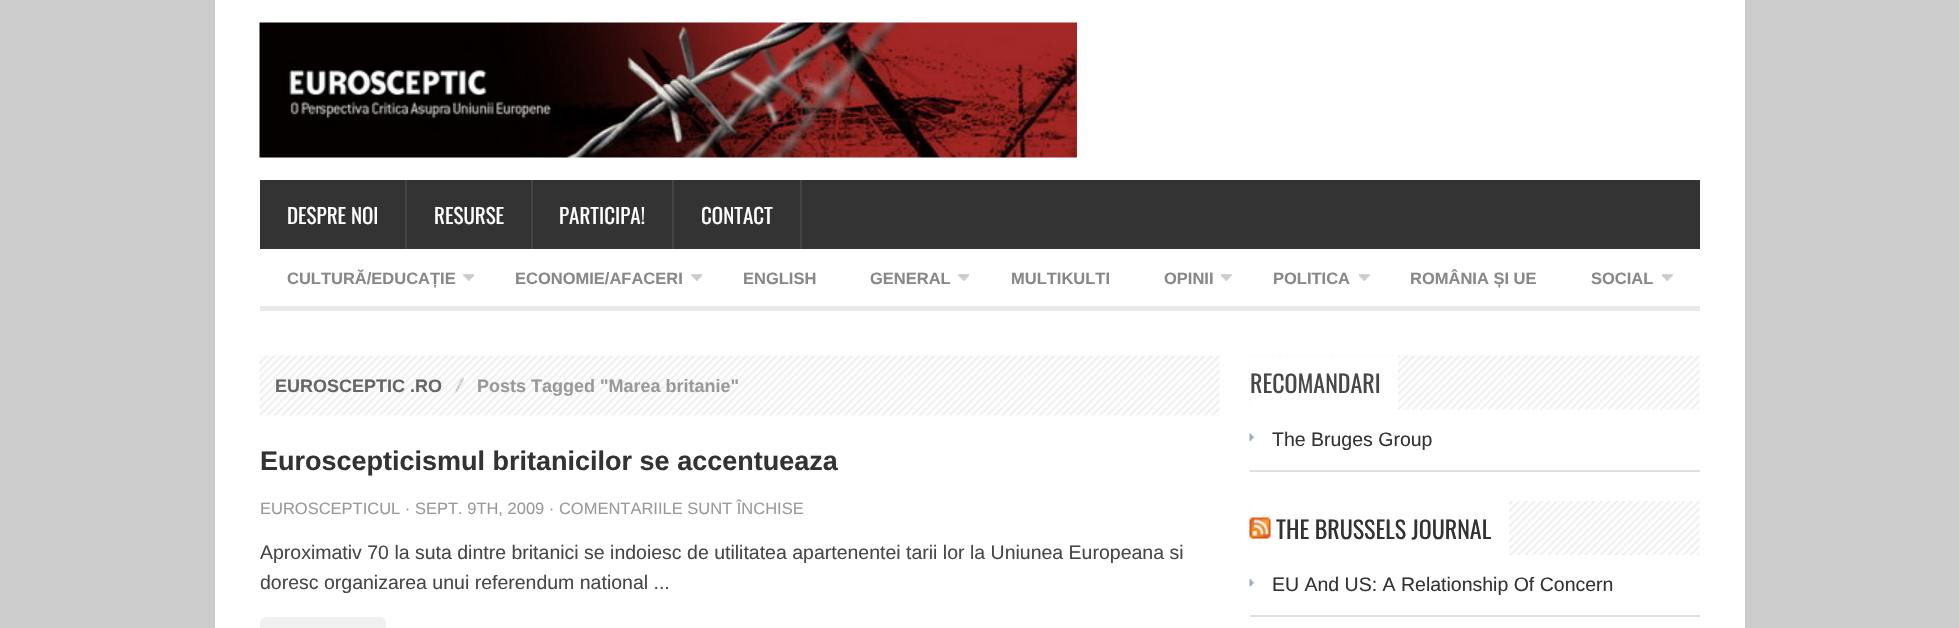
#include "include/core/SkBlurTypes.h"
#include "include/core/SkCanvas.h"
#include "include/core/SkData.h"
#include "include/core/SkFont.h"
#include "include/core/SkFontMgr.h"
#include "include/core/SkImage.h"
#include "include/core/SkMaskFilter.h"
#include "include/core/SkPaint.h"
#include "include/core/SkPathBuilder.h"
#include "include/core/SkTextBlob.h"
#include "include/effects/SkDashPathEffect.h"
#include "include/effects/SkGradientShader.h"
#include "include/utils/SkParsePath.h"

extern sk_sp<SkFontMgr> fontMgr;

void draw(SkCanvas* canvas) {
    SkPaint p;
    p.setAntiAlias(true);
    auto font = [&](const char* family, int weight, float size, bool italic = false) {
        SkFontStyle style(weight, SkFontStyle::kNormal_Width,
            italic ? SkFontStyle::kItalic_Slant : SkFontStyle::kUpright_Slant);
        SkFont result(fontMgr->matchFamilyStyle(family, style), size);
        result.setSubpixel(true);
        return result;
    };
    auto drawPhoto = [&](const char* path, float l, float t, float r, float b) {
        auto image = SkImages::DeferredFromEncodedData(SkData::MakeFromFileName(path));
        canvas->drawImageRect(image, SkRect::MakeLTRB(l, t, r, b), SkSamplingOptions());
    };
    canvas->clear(0xFFCCCCCC);
    p.setColor(0xFFFFFFFF);
    canvas->drawRect(SkRect::MakeLTRB(215, 0, 1745, 628), p);
    drawPhoto("media/1.png", 259, 22, 1077, 158);
    p.setColor(0xFF333333);
    canvas->drawRect(SkRect::MakeLTRB(260, 180, 1700, 249), p);
    p.setColor(0xFF444444);
    canvas->drawRect(SkRect::MakeLTRB(405, 180, 407, 249), p);
    auto font1 = font("Oswald", 400, 21);
    p.setColor(0xFFFFFFFF);
    canvas->drawString("DESPRE NOI", 287, 224, font1, p);
    p.setColor(0xFF444444);
    canvas->drawRect(SkRect::MakeLTRB(531, 180, 533, 249), p);
    p.setColor(0xFFFFFFFF);
    canvas->drawString("RESURSE", 434, 224, font1, p);
    p.setColor(0xFF444444);
    canvas->drawRect(SkRect::MakeLTRB(672, 180, 674, 249), p);
    p.setColor(0xFFFFFFFF);
    canvas->drawString("PARTICIPA!", 559, 224, font1, p);
    p.setColor(0xFF444444);
    canvas->drawRect(SkRect::MakeLTRB(800, 180, 802, 249), p);
    p.setColor(0xFFFFFFFF);
    canvas->drawString("CONTACT", 701, 224, font1, p);
    p.setColor(0xFFE9E9E9);
    canvas->drawRect(SkRect::MakeLTRB(260, 306, 1700, 311), p);
    auto font2 = font("Liberation Sans", 700, 16.5f);
    p.setColor(0xFF888888);
    canvas->drawString("CULTURĂ/EDUCAȚIE", 287, 284, font2, p);
    drawPhoto("media/2.png", 463, 274, 474, 281);
    drawPhoto("media/3.png", 463, 274, 474, 281);
    drawPhoto("media/4.png", 463, 274, 474, 281);
    canvas->drawString("ECONOMIE/AFACERI", 515, 284, font2, p);
    drawPhoto("media/5.png", 691, 274, 702, 281);
    drawPhoto("media/6.png", 691, 274, 702, 281);
    drawPhoto("media/7.png", 691, 274, 702, 281);
    canvas->drawString("ENGLISH", 743, 284, font2, p);
    canvas->drawString("GENERAL", 870, 284, font2, p);
    drawPhoto("media/2.png", 958, 274, 969, 281);
    drawPhoto("media/3.png", 958, 274, 969, 281);
    drawPhoto("media/4.png", 958, 274, 969, 281);
    canvas->drawString("MULTIKULTI", 1011, 284, font2, p);
    canvas->drawString("OPINII", 1164, 284, font2, p);
    drawPhoto("media/8.png", 1221, 274, 1232, 281);
    drawPhoto("media/9.png", 1221, 274, 1232, 281);
    drawPhoto("media/10.png", 1221, 274, 1232, 281);
    canvas->drawString("POLITICA", 1273, 284, font2, p);
    drawPhoto("media/8.png", 1359, 274, 1370, 281);
    drawPhoto("media/9.png", 1359, 274, 1370, 281);
    drawPhoto("media/10.png", 1359, 274, 1370, 281);
    canvas->drawString("ROMÂNIA ȘI UE", 1410, 284, font2, p);
    canvas->drawString("SOCIAL", 1591, 284, font2, p);
    drawPhoto("media/11.png", 1662, 274, 1673, 281);
    drawPhoto("media/12.png", 1662, 274, 1673, 281);
    drawPhoto("media/13.png", 1662, 274, 1673, 281);
    drawPhoto("media/14.png", 259, 355, 1220, 416);
    auto font3 = font("Liberation Sans", 700, 18);
    p.setColor(0xFF666666);
    canvas->drawString("EUROSCEPTIC .RO", 275, 392, font3, p);
    drawPhoto("media/15.png", 454, 377, 464, 393);
    p.setColor(0xFF999999);
    canvas->drawString("Posts Tagged \"Marea britanie\"", 477, 392, font3, p);
    auto font4 = font("Liberation Sans", 700, 27);
    p.setColor(0xFF333333);
    canvas->drawString("Euroscepticismul britanicilor se accentueaza", 260, 470, font4, p);
    auto font5 = font("Liberation Sans", 400, 16.5f);
    p.setColor(0xFF999999);
    canvas->drawString("EUROSCEPTICUL · SEPT. 9TH, 2009 · COMENTARIILE SUNT ÎNCHISE", 260, 514, font5, p);
    auto font6 = font("Liberation Sans", 400, 19.5f);
    p.setColor(0xFF474747);
    canvas->drawString("Aproximativ 70 la suta dintre britanici se indoiesc de utilitatea apartenentei tarii lor la Uniunea Europeana si", 260, 559, font6, p);
    canvas->drawString("doresc organizarea unui referendum national ...", 260, 589, font6, p);
    p.setColor(0xFFF0F0F0);
    canvas->drawRoundRect(SkRect::MakeLTRB(260, 617, 386, 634), 6, 6, p);
    drawPhoto("media/16.png", 1249, 355, 1700, 410);
    p.setColor(0xFFFFFFFF);
    canvas->drawRect(SkRect::MakeLTRB(1250, 356, 1398, 410), p);
    auto font7 = font("Oswald", 400, 24);
    p.setColor(0xFF474747);
    canvas->drawString("RECOMANDARI", 1250, 393, font7, p);
    drawPhoto("media/17.png", 1249, 433, 1255, 442);
    p.setColor(0xFFDFDFDF);
    canvas->drawRect(SkRect::MakeLTRB(1250, 470, 1700, 472), p);
    p.setColor(0xFF333333);
    canvas->drawString("The Bruges Group", 1272, 446, font6, p);
    drawPhoto("media/18.png", 1249, 501, 1700, 555);
    p.setColor(0xFFFFFFFF);
    canvas->drawRect(SkRect::MakeLTRB(1250, 501, 1509, 555), p);
    drawPhoto("media/19.png", 1249, 517, 1271, 539);
    p.setColor(0xFF333333);
    canvas->drawString("THE BRUSSELS JOURNAL", 1276, 539, font7, p);
    drawPhoto("media/20.png", 1249, 578, 1255, 587);
    p.setColor(0xFFDFDFDF);
    canvas->drawRect(SkRect::MakeLTRB(1250, 615, 1700, 617), p);
    p.setColor(0xFF333333);
    canvas->drawString("EU And US: A Relationship Of Concern", 1272, 591, font6, p);
}
